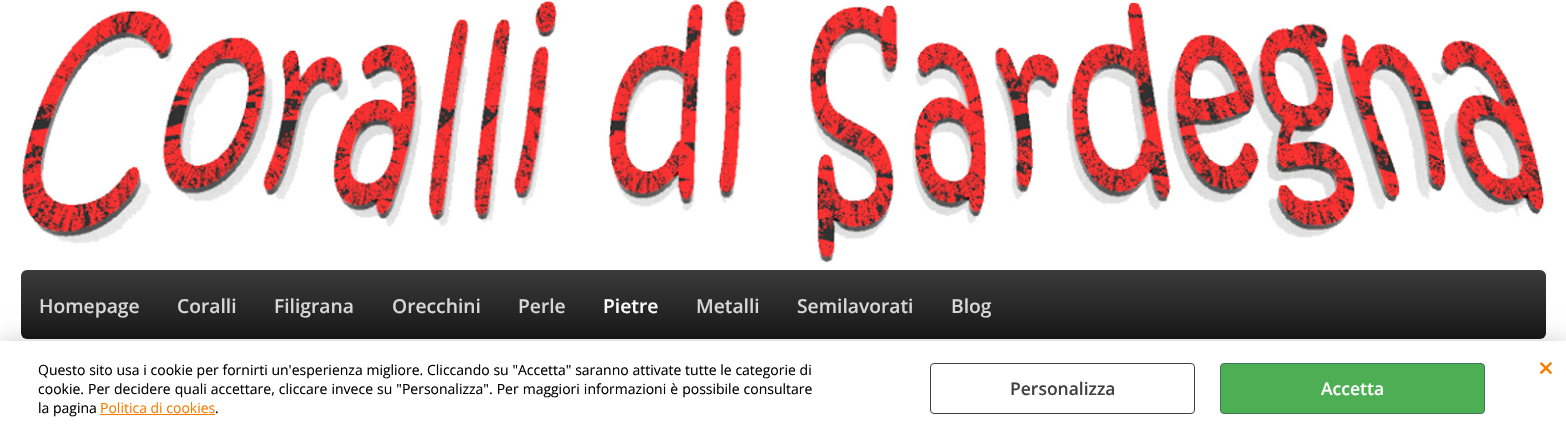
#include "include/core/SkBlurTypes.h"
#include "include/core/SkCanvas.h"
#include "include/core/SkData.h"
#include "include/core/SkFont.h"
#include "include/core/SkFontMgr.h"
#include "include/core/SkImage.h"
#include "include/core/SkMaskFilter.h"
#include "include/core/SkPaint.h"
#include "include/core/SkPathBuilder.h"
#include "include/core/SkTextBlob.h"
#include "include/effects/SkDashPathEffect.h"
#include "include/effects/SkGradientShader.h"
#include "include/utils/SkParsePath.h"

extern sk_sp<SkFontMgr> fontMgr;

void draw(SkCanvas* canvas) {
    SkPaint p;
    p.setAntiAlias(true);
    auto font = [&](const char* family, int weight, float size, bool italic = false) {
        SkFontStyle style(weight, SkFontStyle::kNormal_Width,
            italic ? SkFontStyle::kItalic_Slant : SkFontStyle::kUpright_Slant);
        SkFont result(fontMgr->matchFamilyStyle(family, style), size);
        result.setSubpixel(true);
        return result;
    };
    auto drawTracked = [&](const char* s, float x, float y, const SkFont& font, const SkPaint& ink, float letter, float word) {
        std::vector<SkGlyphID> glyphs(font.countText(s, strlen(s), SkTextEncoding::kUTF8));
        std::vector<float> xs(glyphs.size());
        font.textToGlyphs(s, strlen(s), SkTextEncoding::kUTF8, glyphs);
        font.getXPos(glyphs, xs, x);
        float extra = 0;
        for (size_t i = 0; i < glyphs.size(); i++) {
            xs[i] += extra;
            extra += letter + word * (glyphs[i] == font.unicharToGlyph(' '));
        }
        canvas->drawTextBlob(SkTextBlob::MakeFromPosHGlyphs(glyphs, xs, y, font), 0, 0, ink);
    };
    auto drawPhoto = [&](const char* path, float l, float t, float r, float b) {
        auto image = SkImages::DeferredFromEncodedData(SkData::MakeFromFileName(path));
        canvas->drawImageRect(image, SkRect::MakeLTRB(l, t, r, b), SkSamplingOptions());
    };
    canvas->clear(0xFFFFFFFF);
    drawPhoto("media/1.png", 21, 0, 1545, 263);
    {
        const SkColor colors[] = {0xFF3B3B3B, 0xFF171717};
        const float stops[] = {0, 1};
        const SkPoint ends[] = {{784, 270}, {784, 339}};
        p.setShader(SkGradientShader::MakeLinear(ends, colors, stops, 2, SkTileMode::kClamp));
        p.setAlpha(255);
    }
    canvas->drawRoundRect(SkRect::MakeLTRB(21, 270, 1546, 339), 6, 6, p);
    auto font1 = font("Open Sans", 600, 19.25f);
    p.setShader(nullptr);
    p.setColor(0xFFD7D7D7);
    {
        const struct { const char* s; float x, y; } items[] = {
            {"Homepage", 39, 313},
            {"Coralli", 177, 313},
            {"Filigrana", 274, 313},
            {"Orecchini", 392, 313},
            {"Perle", 518, 313},
        };
        for (auto [s, x, y] : items) {
            canvas->drawString(s, x, y, font1, p);
        }
    }
    p.setColor(0xFFFFFFFF);
    canvas->drawString("Pietre", 603, 313, font1, p);
    p.setColor(0xFFD7D7D7);
    {
        const struct { const char* s; float x, y; } items[] = {
            {"Metalli", 696, 313},
            {"Semilavorati", 797, 313},
            {"Blog", 951, 313},
        };
        for (auto [s, x, y] : items) {
            canvas->drawString(s, x, y, font1, p);
        }
    }
    p.setColor(0x33000000);
    p.setMaskFilter(SkMaskFilter::MakeBlur(kNormal_SkBlurStyle, 11));
    canvas->drawRect(SkRect::MakeLTRB(0, 341, 1566, 435), p);
    p.setMaskFilter(nullptr);
    p.setColor(0xFFFFFFFF);
    canvas->drawRect(SkRect::MakeLTRB(0, 341, 1566, 435), p);
    auto font2 = font("Open Sans", 400, 14);
    p.setColor(0xFF000000);
    drawTracked("Questo sito usa i cookie per fornirti un'esperienza migliore. Cliccando su \"Accetta\" saranno attivate tutte le categorie di", 38, 375, font2, p, 0, 0.1f);
    drawTracked("cookie. Per decidere quali accettare, cliccare invece su \"Personalizza\". Per maggiori informazioni è possibile consultare", 38, 394, font2, p, 0, 0.4f);
    canvas->drawString("la pagina", 38, 413, font2, p);
    p.setColor(0xFFF97C00);
    canvas->drawString("Politica di cookies", 100, 413, font2, p);
    canvas->drawRect(SkRect::MakeLTRB(100, 414, 215, 415), p);
    p.setColor(0xFF000000);
    canvas->drawString(".", 215, 413, font2, p);
    p.setStyle(SkPaint::kStroke_Style);
    p.setStrokeWidth(1);
    p.setColor(0xFF424141);
    canvas->drawRoundRect(SkRect::MakeLTRB(930.5f, 363.5f, 1194.5f, 413.5f), 3.5f, 3.5f, p);
    auto font3 = font("Open Sans", 600, 17.5f);
    p.setStyle(SkPaint::kFill_Style);
    canvas->drawString("Personalizza", 1010, 395, font3, p);
    p.setColor(0xFF4EAE54);
    canvas->drawRoundRect(SkRect::MakeLTRB(1220.5f, 363.5f, 1484.5f, 413.5f), 3.5f, 3.5f, p);
    p.setStyle(SkPaint::kStroke_Style);
    p.setColor(0xFF3F7755);
    canvas->drawRoundRect(SkRect::MakeLTRB(1220.5f, 363.5f, 1484.5f, 413.5f), 3.5f, 3.5f, p);
    p.setStyle(SkPaint::kFill_Style);
    p.setColor(0xFFFFFFFF);
    canvas->drawString("Accetta", 1321, 395, font3, p);
    auto font4 = font("Open Sans", 600, 28);
    p.setColor(0xFFF97C00);
    canvas->drawString("×", 1538, 378, font4, p);
}
